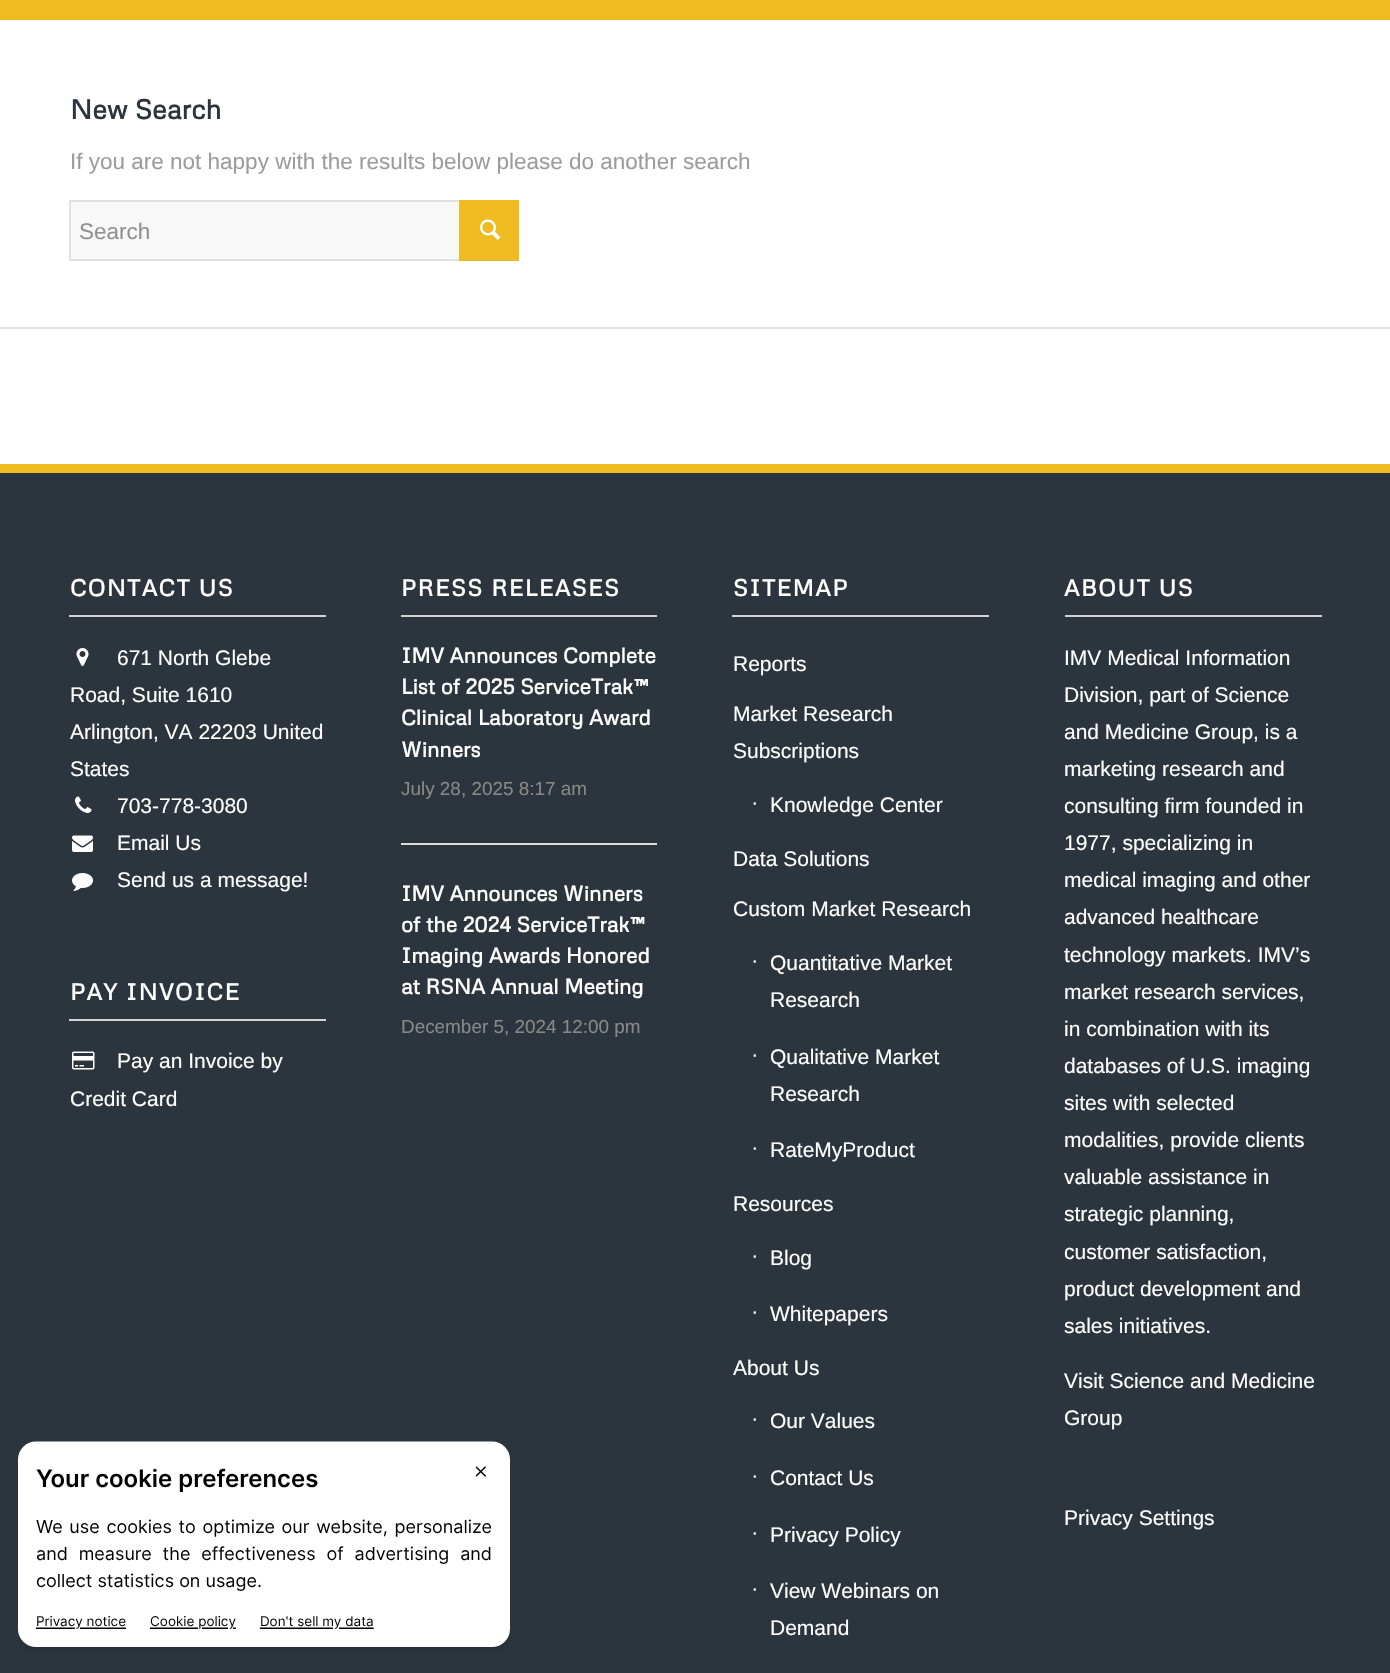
#include "include/core/SkBlurTypes.h"
#include "include/core/SkCanvas.h"
#include "include/core/SkData.h"
#include "include/core/SkFont.h"
#include "include/core/SkFontMgr.h"
#include "include/core/SkImage.h"
#include "include/core/SkMaskFilter.h"
#include "include/core/SkPaint.h"
#include "include/core/SkPathBuilder.h"
#include "include/core/SkTextBlob.h"
#include "include/effects/SkDashPathEffect.h"
#include "include/effects/SkGradientShader.h"
#include "include/utils/SkParsePath.h"

extern sk_sp<SkFontMgr> fontMgr;

void draw(SkCanvas* canvas) {
    SkPaint p;
    p.setAntiAlias(true);
    auto font = [&](const char* family, int weight, float size, bool italic = false) {
        SkFontStyle style(weight, SkFontStyle::kNormal_Width,
            italic ? SkFontStyle::kItalic_Slant : SkFontStyle::kUpright_Slant);
        SkFont result(fontMgr->matchFamilyStyle(family, style), size);
        result.setSubpixel(true);
        return result;
    };
    auto drawTracked = [&](const char* s, float x, float y, const SkFont& font, const SkPaint& ink, float letter, float word) {
        std::vector<SkGlyphID> glyphs(font.countText(s, strlen(s), SkTextEncoding::kUTF8));
        std::vector<float> xs(glyphs.size());
        font.textToGlyphs(s, strlen(s), SkTextEncoding::kUTF8, glyphs);
        font.getXPos(glyphs, xs, x);
        float extra = 0;
        for (size_t i = 0; i < glyphs.size(); i++) {
            xs[i] += extra;
            extra += letter + word * (glyphs[i] == font.unicharToGlyph(' '));
        }
        canvas->drawTextBlob(SkTextBlob::MakeFromPosHGlyphs(glyphs, xs, y, font), 0, 0, ink);
    };
    auto drawPhoto = [&](const char* path, float l, float t, float r, float b) {
        auto image = SkImages::DeferredFromEncodedData(SkData::MakeFromFileName(path));
        canvas->drawImageRect(image, SkRect::MakeLTRB(l, t, r, b), SkSamplingOptions());
    };
    canvas->clear(0xFFFFFFFF);
    p.setColor(0xFFEFBB20);
    canvas->drawRect(SkRect::MakeLTRB(0, 0, 1390, 20), p);
    auto font1 = font("Metrophobic", 700, 27);
    p.setColor(0xFF2C353D);
    canvas->drawString("New Search", 70, 119, font1, p);
    auto font2 = font("Liberation Sans", 400, 22.5f);
    p.setColor(0xFF9C9C9C);
    canvas->drawString("If you are not happy with the results below please do another search", 70, 169, font2, p);
    p.setColor(0xFFF8F8F8);
    canvas->drawRect(SkRect::MakeLTRB(71, 202, 459, 259), p);
    p.setStyle(SkPaint::kStroke_Style);
    p.setStrokeWidth(2);
    p.setColor(0xFFE1E1E1);
    canvas->drawRect(SkRect::MakeLTRB(70, 201, 518, 260), p);
    p.setStyle(SkPaint::kFill_Style);
    p.setColor(0xFF919191);
    canvas->drawString("Search", 79, 239, font2, p);
    p.setColor(0xFFEFBB20);
    canvas->drawRect(SkRect::MakeLTRB(459, 200, 519, 261), p);
    drawPhoto("media/1.png", 480, 219, 501, 240);
    {
        const struct { float l, t, r, b; SkColor color; } items[] = {
            {0, 327, 1390, 329, 0xFFE1E1E1},
            {0, 473, 1390, 1673, 0xFF2C353D},
            {0, 464, 1390, 473, 0xFFEFBB20},
            {69, 615, 326, 617, 0xFFD3D3D3},
        };
        for (auto [l, t, r, b, color] : items) {
            p.setColor(color);
            canvas->drawRect(SkRect::MakeLTRB(l, t, r, b), p);
        }
    }
    auto font3 = font("Metrophobic", 700, 23);
    p.setColor(0xFFFFFFFF);
    drawTracked("CONTACT US", 70, 596, font3, p, 1.5f, 0);
    drawPhoto("media/2.png", 76, 648, 89, 666);
    auto font4 = font("Liberation Sans", 400, 21);
    {
        const struct { const char* s; float x, y; } items[] = {
            {"671 North Glebe", 117, 665},
            {"Road, Suite 1610", 70, 702},
            {"Arlington, VA 22203 United", 70, 739},
            {"States", 70, 776},
        };
        for (auto [s, x, y] : items) {
            canvas->drawString(s, x, y, font4, p);
        }
    }
    drawPhoto("media/3.png", 75, 796, 92, 813);
    canvas->drawString("703-778-3080", 117, 813, font4, p);
    drawPhoto("media/4.png", 72, 835, 93, 852);
    canvas->drawString("Email Us", 117, 850, font4, p);
    drawPhoto("media/5.png", 72, 873, 93, 891);
    canvas->drawString("Send us a message!", 117, 887, font4, p);
    p.setColor(0xFFD3D3D3);
    canvas->drawRect(SkRect::MakeLTRB(69, 1019, 326, 1021), p);
    p.setColor(0xFFFFFFFF);
    drawTracked("PAY INVOICE", 70, 1000, font3, p, 1.5f, 0);
    drawPhoto("media/6.png", 72, 1051, 95, 1070);
    canvas->drawString("Pay an Invoice by", 117, 1068, font4, p);
    canvas->drawString("Credit Card", 70, 1106, font4, p);
    p.setColor(0xFFD3D3D3);
    canvas->drawRect(SkRect::MakeLTRB(401, 615, 657, 617), p);
    p.setColor(0xFFFFFFFF);
    drawTracked("PRESS RELEASES", 401, 596, font3, p, 1.5f, 0);
    p.setColor(0xFFDDDDDD);
    canvas->drawRect(SkRect::MakeLTRB(401, 843, 657, 845), p);
    auto font5 = font("Metrophobic", 700, 21);
    p.setColor(0xFFFFFFFF);
    {
        const struct { const char* s; float x, y; } items[] = {
            {"IMV Announces Complete", 401, 663},
            {"List of 2025 ServiceTrak™", 401, 694},
            {"Clinical Laboratory Award", 401, 725},
            {"Winners", 401, 757},
        };
        for (auto [s, x, y] : items) {
            canvas->drawString(s, x, y, font5, p);
        }
    }
    auto font6 = font("Liberation Sans", 400, 18.9f);
    p.setColor(0xFF888888);
    canvas->drawString("July 28, 2025 8:17 am", 401, 795, font6, p);
    p.setColor(0xFFFFFFFF);
    {
        const struct { const char* s; float x, y; } items[] = {
            {"IMV Announces Winners", 401, 901},
            {"of the 2024 ServiceTrak™", 401, 932},
            {"Imaging Awards Honored", 401, 963},
            {"at RSNA Annual Meeting", 401, 994},
        };
        for (auto [s, x, y] : items) {
            canvas->drawString(s, x, y, font5, p);
        }
    }
    p.setColor(0xFF888888);
    canvas->drawString("December 5, 2024 12:00 pm", 401, 1033, font6, p);
    p.setColor(0xFFD3D3D3);
    canvas->drawRect(SkRect::MakeLTRB(732, 615, 989, 617), p);
    p.setColor(0xFFFFFFFF);
    drawTracked("SITEMAP", 733, 596, font3, p, 1.5f, 0);
    {
        const struct { const char* s; float x, y; } items[] = {
            {"Reports", 733, 671},
            {"Market Research", 733, 721},
            {"Subscriptions", 733, 758},
        };
        for (auto [s, x, y] : items) {
            canvas->drawString(s, x, y, font4, p);
        }
    }
    auto font7 = font("Liberation Sans", 400, 20);
    canvas->drawString("∙", 752, 809, font7, p);
    {
        const struct { const char* s; float x, y; } items[] = {
            {"Knowledge Center", 770, 812},
            {"Data Solutions", 733, 866},
            {"Custom Market Research", 733, 916},
        };
        for (auto [s, x, y] : items) {
            canvas->drawString(s, x, y, font4, p);
        }
    }
    canvas->drawString("∙", 752, 967, font7, p);
    canvas->drawString("Quantitative Market", 770, 970, font4, p);
    canvas->drawString("Research", 770, 1007, font4, p);
    canvas->drawString("∙", 752, 1061, font7, p);
    canvas->drawString("Qualitative Market", 770, 1064, font4, p);
    canvas->drawString("Research", 770, 1101, font4, p);
    canvas->drawString("∙", 752, 1154, font7, p);
    canvas->drawString("RateMyProduct", 770, 1157, font4, p);
    canvas->drawString("Resources", 733, 1211, font4, p);
    canvas->drawString("∙", 752, 1262, font7, p);
    canvas->drawString("Blog", 770, 1265, font4, p);
    canvas->drawString("∙", 752, 1318, font7, p);
    canvas->drawString("Whitepapers", 770, 1321, font4, p);
    canvas->drawString("About Us", 733, 1375, font4, p);
    canvas->drawString("∙", 752, 1425, font7, p);
    canvas->drawString("Our Values", 770, 1428, font4, p);
    canvas->drawString("∙", 752, 1482, font7, p);
    canvas->drawString("Contact Us", 770, 1485, font4, p);
    canvas->drawString("∙", 752, 1539, font7, p);
    canvas->drawString("Privacy Policy", 770, 1542, font4, p);
    canvas->drawString("∙", 752, 1595, font7, p);
    canvas->drawString("View Webinars on", 770, 1598, font4, p);
    canvas->drawString("Demand", 770, 1635, font4, p);
    p.setColor(0xFFD3D3D3);
    canvas->drawRect(SkRect::MakeLTRB(1065, 615, 1322, 617), p);
    p.setColor(0xFFFFFFFF);
    drawTracked("ABOUT US", 1064, 596, font3, p, 1.5f, 0);
    {
        const struct { const char* s; float x, y; } items[] = {
            {"IMV Medical Information", 1064, 665},
            {"Division, part of Science", 1064, 702},
            {"and Medicine Group, is a", 1064, 739},
            {"marketing research and", 1064, 776},
            {"consulting firm founded in", 1064, 813},
            {"1977, specializing in", 1064, 850},
            {"medical imaging and other", 1064, 887},
            {"advanced healthcare", 1064, 924},
            {"technology markets. IMV’s", 1064, 962},
            {"market research services,", 1064, 999},
            {"in combination with its", 1064, 1036},
            {"databases of U.S. imaging", 1064, 1073},
            {"sites with selected", 1064, 1110},
            {"modalities, provide clients", 1064, 1147},
            {"valuable assistance in", 1064, 1184},
            {"strategic planning,", 1064, 1221},
            {"customer satisfaction,", 1064, 1259},
            {"product development and", 1064, 1296},
            {"sales initiatives.", 1064, 1333},
            {"Visit Science and Medicine", 1064, 1388},
            {"Group", 1064, 1425},
            {"Privacy Settings", 1064, 1525},
        };
        for (auto [s, x, y] : items) {
            canvas->drawString(s, x, y, font4, p);
        }
    }
    drawPhoto("media/7.png", 18, 1441, 510, 1651);
}
